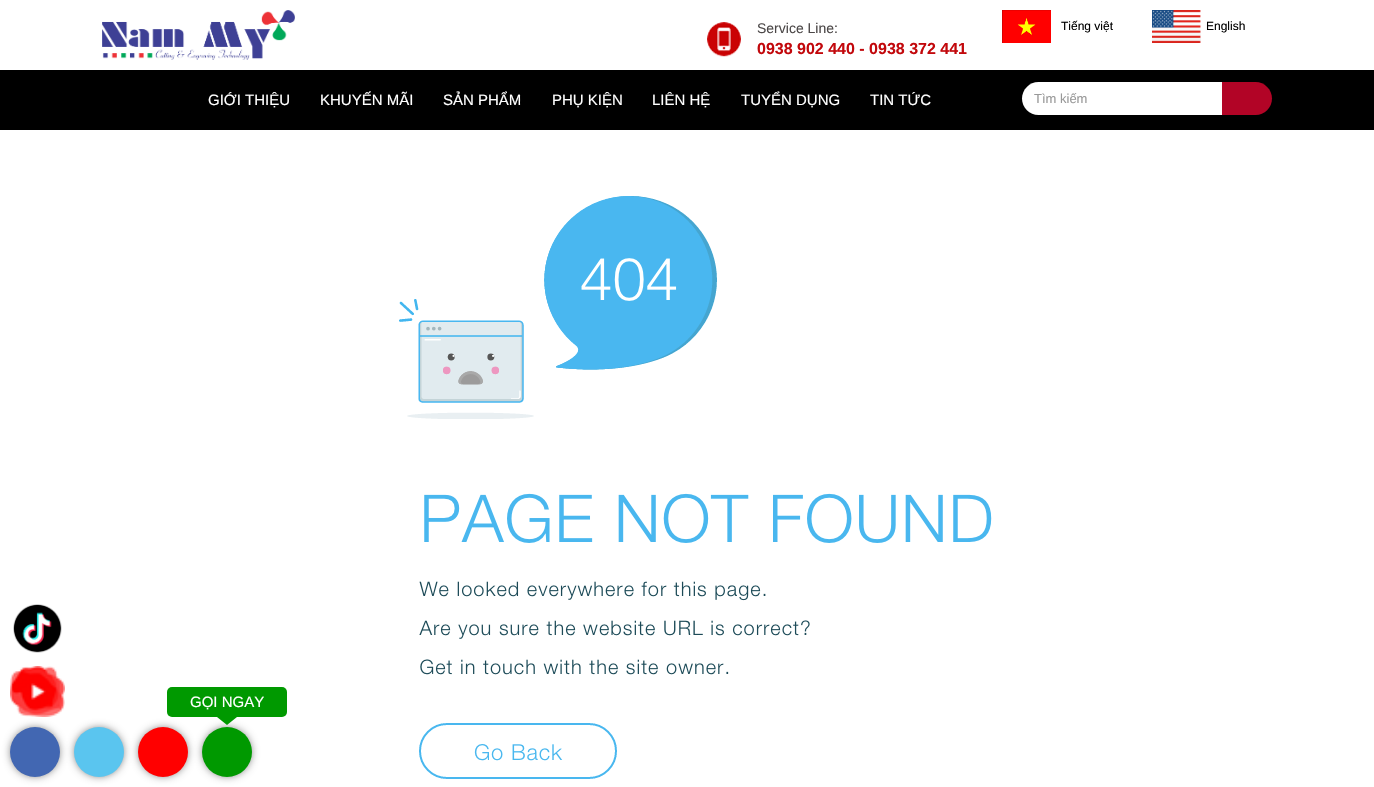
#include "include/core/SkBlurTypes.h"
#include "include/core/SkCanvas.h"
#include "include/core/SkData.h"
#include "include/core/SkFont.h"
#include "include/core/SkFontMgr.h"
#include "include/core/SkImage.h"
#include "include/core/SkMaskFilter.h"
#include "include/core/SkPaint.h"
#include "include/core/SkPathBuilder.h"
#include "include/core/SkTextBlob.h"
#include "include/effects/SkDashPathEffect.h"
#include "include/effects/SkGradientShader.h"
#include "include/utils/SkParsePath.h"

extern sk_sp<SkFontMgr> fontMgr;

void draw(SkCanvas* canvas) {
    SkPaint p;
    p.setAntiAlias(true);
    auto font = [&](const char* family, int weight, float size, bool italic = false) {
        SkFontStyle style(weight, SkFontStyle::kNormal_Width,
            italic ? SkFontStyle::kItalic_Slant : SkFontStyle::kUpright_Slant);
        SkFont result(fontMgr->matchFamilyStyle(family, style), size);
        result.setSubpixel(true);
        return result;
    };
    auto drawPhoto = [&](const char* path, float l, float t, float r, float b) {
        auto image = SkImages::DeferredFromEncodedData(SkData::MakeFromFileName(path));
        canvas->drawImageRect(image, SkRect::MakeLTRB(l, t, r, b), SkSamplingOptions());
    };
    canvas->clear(0xFFFFFFFF);
    drawPhoto("media/1.png", 102, 10, 295, 60);
    drawPhoto("media/2.png", 707, 22, 741, 57);
    auto font1 = font("Liberation Sans", 400, 14);
    p.setColor(0xFF4C4848);
    canvas->drawString("Service Line:", 757, 33, font1, p);
    auto font2 = font("Liberation Sans", 700, 16);
    p.setColor(0xFFC2080C);
    canvas->drawString("0938 902 440 - 0938 372 441", 757, 54, font2, p);
    drawPhoto("media/3.png", 1002, 10, 1051, 43);
    auto font3 = font("Liberation Sans", 400, 12);
    p.setColor(0xFF000000);
    canvas->drawString("Tiếng việt", 1061, 30, font3, p);
    drawPhoto("media/4.png", 1152, 10, 1201, 43);
    canvas->drawString("English", 1206, 30, font3, p);
    canvas->drawRect(SkRect::MakeLTRB(0, 70, 1374, 130), p);
    auto font4 = font("Liberation Sans", 400, 15);
    p.setColor(0xFFFFFFFF);
    {
        const struct { const char* s; float x, y; } items[] = {
            {"GIỚI THIỆU", 208, 105},
            {"KHUYẾN MÃI", 320, 105},
            {"SẢN PHẨM", 443, 105},
            {"PHỤ KIỆN", 552, 105},
            {"LIÊN HỆ", 652, 105},
            {"TUYỂN DỤNG", 741, 105},
            {"TIN TỨC", 870, 105},
        };
        for (auto [s, x, y] : items) {
            canvas->drawString(s, x, y, font4, p);
        }
    }
    canvas->drawPath(SkPathBuilder().moveTo(1038.5f, 82).lineTo(1222, 82).lineTo(1222, 115).lineTo(1038.5f, 115).cubicTo(1029.5f, 115, 1022, 107.5f, 1022, 98.5f).cubicTo(1022, 89.5f, 1029.5f, 82, 1038.5f, 82).close().detach(), p);
    auto font5 = font("Liberation Sans", 400, 13);
    p.setColor(0xFF999999);
    canvas->drawString("Tìm kiếm", 1034, 103, font5, p);
    p.setColor(0xFFB20426);
    canvas->drawPath(SkPathBuilder().moveTo(1222, 82).lineTo(1255.5f, 82).cubicTo(1264.5f, 82, 1272, 89.5f, 1272, 98.5f).cubicTo(1272, 107.5f, 1264.5f, 115, 1255.5f, 115).lineTo(1222, 115).close().detach(), p);
    drawPhoto("media/5.png", 13, 604, 62, 653);
    drawPhoto("media/6.png", 10, 666, 65, 717);
    p.setColor(0xB3000000);
    p.setMaskFilter(SkMaskFilter::MakeBlur(kNormal_SkBlurStyle, 5));
    canvas->drawRoundRect(SkRect::MakeLTRB(204, 729, 250, 775), 23, 23, p);
    p.setMaskFilter(nullptr);
    p.setMaskFilter(SkMaskFilter::MakeBlur(kNormal_SkBlurStyle, 5));
    canvas->drawRoundRect(SkRect::MakeLTRB(140, 729, 186, 775), 23, 23, p);
    p.setMaskFilter(nullptr);
    p.setColor(0xFF009900);
    canvas->drawRoundRect(SkRect::MakeLTRB(167, 687, 287, 717), 5, 5, p);
    p.setColor(0xFFFFFFFF);
    canvas->drawString("GỌI NGAY", 190, 707, font4, p);
    p.setColor(0xFF009900);
    canvas->drawPath(SkPathBuilder().moveTo(217, 717).lineTo(237, 717).lineTo(227, 725).close().detach(), p);
    canvas->drawCircle(227, 752, 25, p);
    p.setColor(0xB3000000);
    p.setMaskFilter(SkMaskFilter::MakeBlur(kNormal_SkBlurStyle, 5));
    canvas->drawRoundRect(SkRect::MakeLTRB(12, 729, 58, 775), 23, 23, p);
    p.setMaskFilter(nullptr);
    p.setColor(0xFF4267B2);
    canvas->drawCircle(35, 752, 25, p);
    p.setColor(0xB3000000);
    p.setMaskFilter(SkMaskFilter::MakeBlur(kNormal_SkBlurStyle, 5));
    canvas->drawRoundRect(SkRect::MakeLTRB(76, 729, 122, 775), 23, 23, p);
    p.setMaskFilter(nullptr);
    p.setColor(0xFF5AC5EF);
    canvas->drawCircle(99, 752, 25, p);
    p.setColor(0xFFFF0000);
    canvas->drawCircle(163, 752, 25, p);
    drawPhoto("media/7.png", 399, 196, 992, 779);
}
